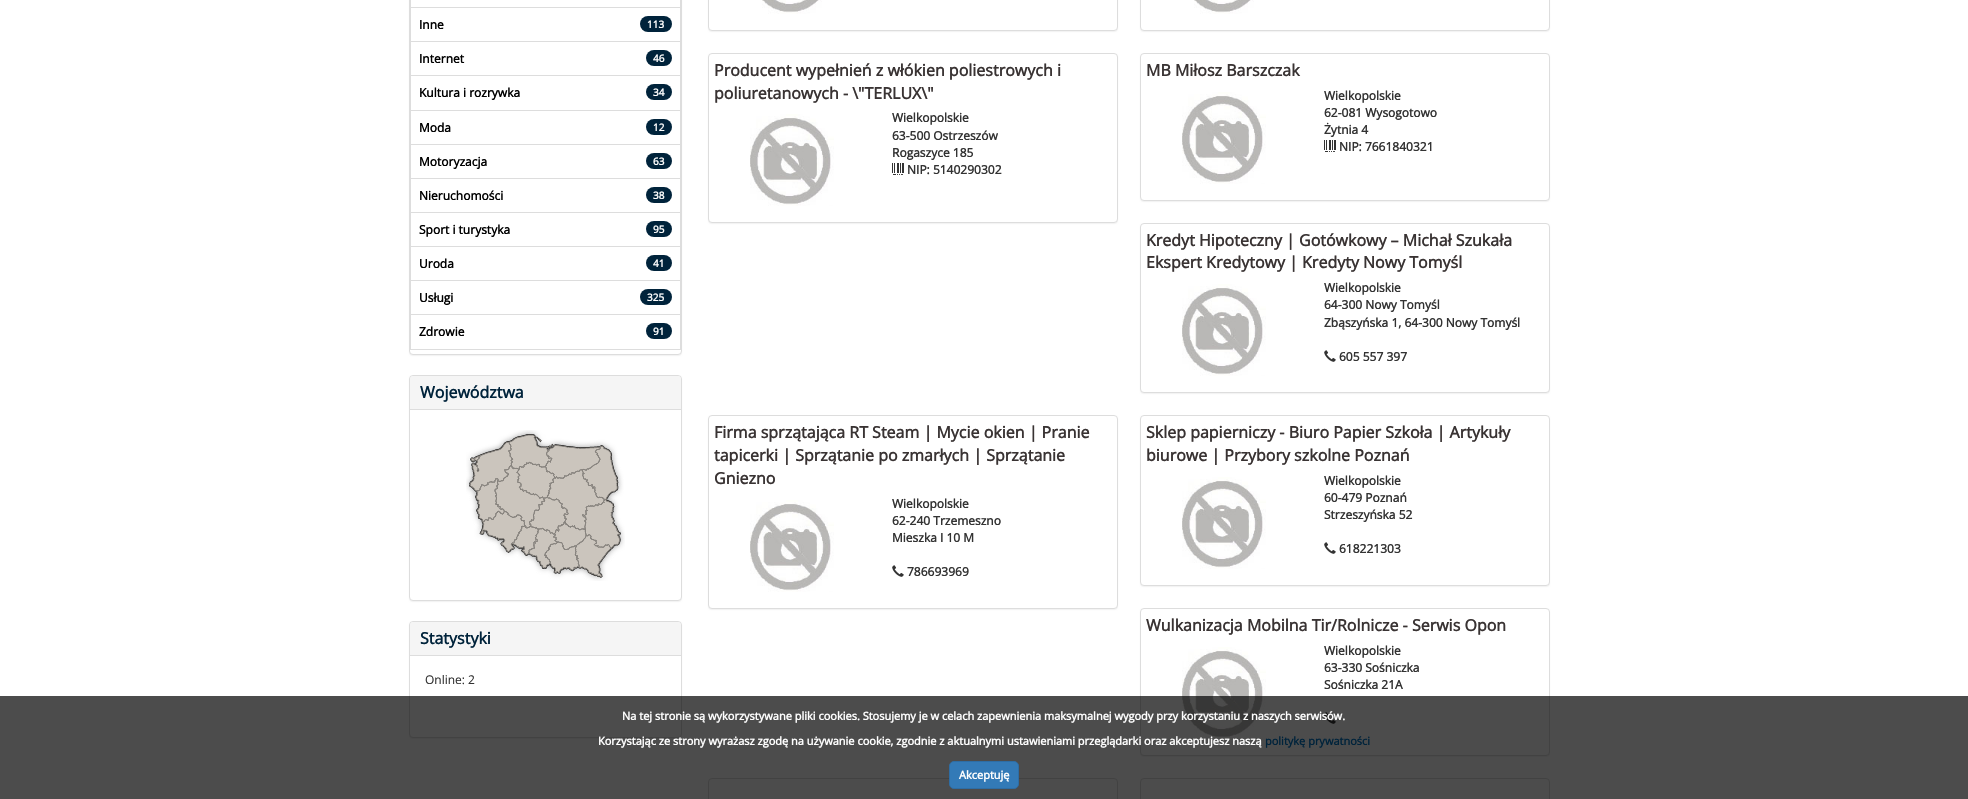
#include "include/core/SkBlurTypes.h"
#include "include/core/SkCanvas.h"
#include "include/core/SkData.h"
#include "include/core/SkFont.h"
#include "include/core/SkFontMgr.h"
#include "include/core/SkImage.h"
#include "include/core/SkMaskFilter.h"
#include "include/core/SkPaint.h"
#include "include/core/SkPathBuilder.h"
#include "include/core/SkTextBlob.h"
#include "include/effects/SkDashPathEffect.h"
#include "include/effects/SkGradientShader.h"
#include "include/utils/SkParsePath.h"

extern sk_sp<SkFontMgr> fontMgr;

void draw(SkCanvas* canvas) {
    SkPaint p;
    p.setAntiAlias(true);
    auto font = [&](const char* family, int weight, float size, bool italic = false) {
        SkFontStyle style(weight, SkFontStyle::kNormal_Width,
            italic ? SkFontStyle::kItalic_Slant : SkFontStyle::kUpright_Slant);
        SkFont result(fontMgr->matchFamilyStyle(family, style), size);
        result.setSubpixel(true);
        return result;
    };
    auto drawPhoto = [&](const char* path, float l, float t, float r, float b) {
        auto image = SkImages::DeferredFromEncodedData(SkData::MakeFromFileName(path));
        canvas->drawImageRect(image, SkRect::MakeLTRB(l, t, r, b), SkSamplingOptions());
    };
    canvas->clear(0xFFFFFFFF);
    p.setColor(0x0D000000);
    p.setMaskFilter(SkMaskFilter::MakeBlur(kNormal_SkBlurStyle, 0.5f));
    canvas->drawRoundRect(SkRect::MakeLTRB(409, -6, 682, 356), 4, 4, p);
    p.setMaskFilter(nullptr);
    p.setColor(0xFFFFFFFF);
    canvas->drawRoundRect(SkRect::MakeLTRB(409.5f, -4.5f, 681.5f, 354.5f), 3.5f, 3.5f, p);
    p.setStyle(SkPaint::kStroke_Style);
    p.setStrokeWidth(1);
    p.setColor(0xFFDDDDDD);
    canvas->drawRoundRect(SkRect::MakeLTRB(409.5f, -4.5f, 681.5f, 354.5f), 3.5f, 3.5f, p);
    p.setStyle(SkPaint::kFill_Style);
    {
        const struct { float l, t, r, b; SkColor color; } items[] = {
            {680, 0, 681, 350, 0xFFDDDDDD},
            {410, 7, 681, 8, 0xFFDDDDDD},
            {410, 0, 411, 8, 0xFFDDDDDD},
            {410, 41, 681, 42, 0xFFDDDDDD},
            {410, 8, 411, 42, 0xFFDDDDDD},
        };
        for (auto [l, t, r, b, color] : items) {
            p.setColor(color);
            canvas->drawRect(SkRect::MakeLTRB(l, t, r, b), p);
        }
    }
    auto font1 = font("Open Sans", 700, 12);
    p.setColor(0xFF000000);
    canvas->drawString("Inne", 419, 29, font1, p);
    p.setColor(0xFF00233B);
    canvas->drawRoundRect(SkRect::MakeLTRB(640, 16, 672, 32), 8, 8, p);
    auto font2 = font("Open Sans", 700, 10);
    p.setColor(0xFFFFFFFF);
    canvas->drawString("113", 647, 28, font2, p);
    p.setColor(0xFFDDDDDD);
    canvas->drawRect(SkRect::MakeLTRB(410, 75, 681, 76), p);
    canvas->drawRect(SkRect::MakeLTRB(410, 42, 411, 76), p);
    p.setColor(0xFF000000);
    canvas->drawString("Internet", 419, 63, font1, p);
    p.setColor(0xFF00233B);
    canvas->drawRoundRect(SkRect::MakeLTRB(646, 50, 672, 66), 8, 8, p);
    p.setColor(0xFFFFFFFF);
    canvas->drawString("46", 653, 62, font2, p);
    p.setColor(0xFFDDDDDD);
    canvas->drawRect(SkRect::MakeLTRB(410, 110, 681, 111), p);
    canvas->drawRect(SkRect::MakeLTRB(410, 76, 411, 111), p);
    p.setColor(0xFF000000);
    canvas->drawString("Kultura i rozrywka", 419, 97, font1, p);
    p.setColor(0xFF00233B);
    canvas->drawRoundRect(SkRect::MakeLTRB(646, 84, 672, 100), 8, 8, p);
    p.setColor(0xFFFFFFFF);
    canvas->drawString("34", 653, 96, font2, p);
    p.setColor(0xFFDDDDDD);
    canvas->drawRect(SkRect::MakeLTRB(410, 144, 681, 145), p);
    canvas->drawRect(SkRect::MakeLTRB(410, 111, 411, 145), p);
    p.setColor(0xFF000000);
    canvas->drawString("Moda", 419, 132, font1, p);
    p.setColor(0xFF00233B);
    canvas->drawRoundRect(SkRect::MakeLTRB(646, 119, 672, 135), 8, 8, p);
    p.setColor(0xFFFFFFFF);
    canvas->drawString("12", 653, 131, font2, p);
    p.setColor(0xFFDDDDDD);
    canvas->drawRect(SkRect::MakeLTRB(410, 178, 681, 179), p);
    canvas->drawRect(SkRect::MakeLTRB(410, 145, 411, 179), p);
    p.setColor(0xFF000000);
    canvas->drawString("Motoryzacja", 419, 166, font1, p);
    p.setColor(0xFF00233B);
    canvas->drawRoundRect(SkRect::MakeLTRB(646, 153, 672, 169), 8, 8, p);
    p.setColor(0xFFFFFFFF);
    canvas->drawString("63", 653, 165, font2, p);
    p.setColor(0xFFDDDDDD);
    canvas->drawRect(SkRect::MakeLTRB(410, 212, 681, 213), p);
    canvas->drawRect(SkRect::MakeLTRB(410, 179, 411, 213), p);
    p.setColor(0xFF000000);
    canvas->drawString("Nieruchomości", 419, 200, font1, p);
    p.setColor(0xFF00233B);
    canvas->drawRoundRect(SkRect::MakeLTRB(646, 187, 672, 203), 8, 8, p);
    p.setColor(0xFFFFFFFF);
    canvas->drawString("38", 653, 199, font2, p);
    p.setColor(0xFFDDDDDD);
    canvas->drawRect(SkRect::MakeLTRB(410, 246, 681, 247), p);
    canvas->drawRect(SkRect::MakeLTRB(410, 213, 411, 247), p);
    p.setColor(0xFF000000);
    canvas->drawString("Sport i turystyka", 419, 234, font1, p);
    p.setColor(0xFF00233B);
    canvas->drawRoundRect(SkRect::MakeLTRB(646, 221, 672, 237), 8, 8, p);
    p.setColor(0xFFFFFFFF);
    canvas->drawString("95", 653, 233, font2, p);
    p.setColor(0xFFDDDDDD);
    canvas->drawRect(SkRect::MakeLTRB(410, 280, 681, 281), p);
    canvas->drawRect(SkRect::MakeLTRB(410, 247, 411, 281), p);
    p.setColor(0xFF000000);
    canvas->drawString("Uroda", 419, 268, font1, p);
    p.setColor(0xFF00233B);
    canvas->drawRoundRect(SkRect::MakeLTRB(646, 255, 672, 271), 8, 8, p);
    p.setColor(0xFFFFFFFF);
    canvas->drawString("41", 653, 267, font2, p);
    p.setColor(0xFFDDDDDD);
    canvas->drawRect(SkRect::MakeLTRB(410, 314, 681, 315), p);
    canvas->drawRect(SkRect::MakeLTRB(410, 281, 411, 315), p);
    p.setColor(0xFF000000);
    canvas->drawString("Usługi", 419, 302, font1, p);
    p.setColor(0xFF00233B);
    canvas->drawRoundRect(SkRect::MakeLTRB(640, 289, 672, 305), 8, 8, p);
    p.setColor(0xFFFFFFFF);
    canvas->drawString("325", 647, 301, font2, p);
    p.setColor(0xFFDDDDDD);
    canvas->drawRect(SkRect::MakeLTRB(410, 349, 681, 350), p);
    canvas->drawRect(SkRect::MakeLTRB(410, 315, 411, 350), p);
    p.setColor(0xFF000000);
    canvas->drawString("Zdrowie", 419, 336, font1, p);
    p.setColor(0xFF00233B);
    canvas->drawRoundRect(SkRect::MakeLTRB(646, 323, 672, 339), 8, 8, p);
    p.setColor(0xFFFFFFFF);
    canvas->drawString("91", 653, 335, font2, p);
    p.setColor(0x0D000000);
    p.setMaskFilter(SkMaskFilter::MakeBlur(kNormal_SkBlurStyle, 0.5f));
    canvas->drawRoundRect(SkRect::MakeLTRB(409, 376, 682, 602), 4, 4, p);
    p.setMaskFilter(nullptr);
    p.setColor(0xFFFFFFFF);
    canvas->drawRoundRect(SkRect::MakeLTRB(409.5f, 375.5f, 681.5f, 600.5f), 3.5f, 3.5f, p);
    p.setStyle(SkPaint::kStroke_Style);
    p.setColor(0xFFDDDDDD);
    canvas->drawRoundRect(SkRect::MakeLTRB(409.5f, 375.5f, 681.5f, 600.5f), 3.5f, 3.5f, p);
    p.setStyle(SkPaint::kFill_Style);
    p.setColor(0xFFF5F5F5);
    canvas->drawPath(SkPathBuilder().moveTo(413, 376).lineTo(678, 376).cubicTo(679.5f, 376, 681, 377.5f, 681, 379).lineTo(681, 410).lineTo(410, 410).lineTo(410, 379).cubicTo(410, 377.5f, 411.5f, 376, 413, 376).close().detach(), p);
    p.setColor(0xFFDDDDDD);
    canvas->drawRect(SkRect::MakeLTRB(410, 409, 681, 410), p);
    auto font3 = font("Open Sans", 700, 16);
    p.setColor(0xFF00233B);
    canvas->drawString("Województwa", 420, 398, font3, p);
    drawPhoto("media/1.png", 466, 430, 625, 581);
    p.setColor(0x0D000000);
    p.setMaskFilter(SkMaskFilter::MakeBlur(kNormal_SkBlurStyle, 0.5f));
    canvas->drawRoundRect(SkRect::MakeLTRB(409, 622, 682, 739), 4, 4, p);
    p.setMaskFilter(nullptr);
    p.setColor(0xFFFFFFFF);
    canvas->drawRoundRect(SkRect::MakeLTRB(409.5f, 621.5f, 681.5f, 737.5f), 3.5f, 3.5f, p);
    p.setStyle(SkPaint::kStroke_Style);
    p.setColor(0xFFDDDDDD);
    canvas->drawRoundRect(SkRect::MakeLTRB(409.5f, 621.5f, 681.5f, 737.5f), 3.5f, 3.5f, p);
    p.setStyle(SkPaint::kFill_Style);
    p.setColor(0xFFF5F5F5);
    canvas->drawPath(SkPathBuilder().moveTo(413, 622).lineTo(678, 622).cubicTo(679.5f, 622, 681, 623.5f, 681, 625).lineTo(681, 656).lineTo(410, 656).lineTo(410, 625).cubicTo(410, 623.5f, 411.5f, 622, 413, 622).close().detach(), p);
    p.setColor(0xFFDDDDDD);
    canvas->drawRect(SkRect::MakeLTRB(410, 655, 681, 656), p);
    p.setColor(0xFF00233B);
    canvas->drawString("Statystyki", 420, 644, font3, p);
    auto font4 = font("Open Sans", 400, 12);
    p.setColor(0xFF333333);
    canvas->drawString("Online: 2", 425, 684, font4, p);
    p.setColor(0x0D000000);
    p.setMaskFilter(SkMaskFilter::MakeBlur(kNormal_SkBlurStyle, 0.5f));
    canvas->drawRoundRect(SkRect::MakeLTRB(708, -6, 1118, 32), 4, 4, p);
    p.setMaskFilter(nullptr);
    p.setColor(0xFFFFFFFF);
    canvas->drawRoundRect(SkRect::MakeLTRB(708.5f, -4.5f, 1117.5f, 30.5f), 3.5f, 3.5f, p);
    p.setStyle(SkPaint::kStroke_Style);
    p.setColor(0xFFDDDDDD);
    canvas->drawRoundRect(SkRect::MakeLTRB(708.5f, -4.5f, 1117.5f, 30.5f), 3.5f, 3.5f, p);
    drawPhoto("media/2.png", 762, 0, 822, 14);
    p.setStyle(SkPaint::kFill_Style);
    p.setColor(0x0D000000);
    p.setMaskFilter(SkMaskFilter::MakeBlur(kNormal_SkBlurStyle, 0.5f));
    canvas->drawRoundRect(SkRect::MakeLTRB(1140, -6, 1550, 32), 4, 4, p);
    p.setMaskFilter(nullptr);
    p.setColor(0xFFFFFFFF);
    canvas->drawRoundRect(SkRect::MakeLTRB(1140.5f, -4.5f, 1549.5f, 30.5f), 3.5f, 3.5f, p);
    p.setStyle(SkPaint::kStroke_Style);
    p.setColor(0xFFDDDDDD);
    canvas->drawRoundRect(SkRect::MakeLTRB(1140.5f, -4.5f, 1549.5f, 30.5f), 3.5f, 3.5f, p);
    drawPhoto("media/2.png", 1194, 0, 1254, 14);
    p.setStyle(SkPaint::kFill_Style);
    p.setColor(0x0D000000);
    p.setMaskFilter(SkMaskFilter::MakeBlur(kNormal_SkBlurStyle, 0.5f));
    canvas->drawRoundRect(SkRect::MakeLTRB(708, 54, 1118, 224), 4, 4, p);
    p.setMaskFilter(nullptr);
    p.setColor(0xFFFFFFFF);
    canvas->drawRoundRect(SkRect::MakeLTRB(708.5f, 53.5f, 1117.5f, 222.5f), 3.5f, 3.5f, p);
    p.setStyle(SkPaint::kStroke_Style);
    p.setColor(0xFFDDDDDD);
    canvas->drawRoundRect(SkRect::MakeLTRB(708.5f, 53.5f, 1117.5f, 222.5f), 3.5f, 3.5f, p);
    p.setStyle(SkPaint::kFill_Style);
    p.setColor(0xFF393333);
    canvas->drawString("Producent wypełnień z włókien poliestrowych i", 714, 76, font3, p);
    canvas->drawString("poliuretanowych - \\\"TERLUX\\\"", 714, 99, font3, p);
    drawPhoto("media/3.png", 750, 114, 834, 206);
    p.setColor(0xFF333333);
    {
        const struct { const char* s; float x, y; } items[] = {
            {"Wielkopolskie", 892, 122},
            {"63-500 Ostrzeszów", 892, 140},
            {"Rogaszyce 185", 892, 157},
        };
        for (auto [s, x, y] : items) {
            canvas->drawString(s, x, y, font1, p);
        }
    }
    drawPhoto("media/4.png", 892, 163, 904, 175);
    canvas->drawString("NIP: 5140290302", 907, 174, font1, p);
    p.setColor(0x0D000000);
    p.setMaskFilter(SkMaskFilter::MakeBlur(kNormal_SkBlurStyle, 0.5f));
    canvas->drawRoundRect(SkRect::MakeLTRB(1140, 54, 1550, 202), 4, 4, p);
    p.setMaskFilter(nullptr);
    p.setColor(0xFFFFFFFF);
    canvas->drawRoundRect(SkRect::MakeLTRB(1140.5f, 53.5f, 1549.5f, 200.5f), 3.5f, 3.5f, p);
    p.setStyle(SkPaint::kStroke_Style);
    p.setColor(0xFFDDDDDD);
    canvas->drawRoundRect(SkRect::MakeLTRB(1140.5f, 53.5f, 1549.5f, 200.5f), 3.5f, 3.5f, p);
    p.setStyle(SkPaint::kFill_Style);
    p.setColor(0xFF393333);
    canvas->drawString("MB Miłosz Barszczak", 1146, 76, font3, p);
    drawPhoto("media/5.png", 1182, 92, 1266, 184);
    p.setColor(0xFF333333);
    {
        const struct { const char* s; float x, y; } items[] = {
            {"Wielkopolskie", 1324, 100},
            {"62-081 Wysogotowo", 1324, 117},
            {"Żytnia 4", 1324, 134},
        };
        for (auto [s, x, y] : items) {
            canvas->drawString(s, x, y, font1, p);
        }
    }
    drawPhoto("media/4.png", 1324, 140, 1336, 152);
    canvas->drawString("NIP: 7661840321", 1339, 151, font1, p);
    p.setColor(0x0D000000);
    p.setMaskFilter(SkMaskFilter::MakeBlur(kNormal_SkBlurStyle, 0.5f));
    canvas->drawRoundRect(SkRect::MakeLTRB(1140, 224, 1550, 394), 4, 4, p);
    p.setMaskFilter(nullptr);
    p.setColor(0xFFFFFFFF);
    canvas->drawRoundRect(SkRect::MakeLTRB(1140.5f, 223.5f, 1549.5f, 392.5f), 3.5f, 3.5f, p);
    p.setStyle(SkPaint::kStroke_Style);
    p.setColor(0xFFDDDDDD);
    canvas->drawRoundRect(SkRect::MakeLTRB(1140.5f, 223.5f, 1549.5f, 392.5f), 3.5f, 3.5f, p);
    p.setStyle(SkPaint::kFill_Style);
    p.setColor(0xFF393333);
    canvas->drawString("Kredyt Hipoteczny | Gotówkowy – Michał Szukała", 1146, 246, font3, p);
    canvas->drawString("Ekspert Kredytowy | Kredyty Nowy Tomyśl", 1146, 268, font3, p);
    drawPhoto("media/5.png", 1182, 284, 1266, 376);
    p.setColor(0xFF333333);
    {
        const struct { const char* s; float x, y; } items[] = {
            {"Wielkopolskie", 1324, 292},
            {"64-300 Nowy Tomyśl", 1324, 309},
            {"Zbąszyńska 1, 64-300 Nowy Tomyśl", 1324, 327},
        };
        for (auto [s, x, y] : items) {
            canvas->drawString(s, x, y, font1, p);
        }
    }
    drawPhoto("media/6.png", 1324, 350, 1336, 362);
    canvas->drawString("605 557 397", 1339, 361, font1, p);
    p.setColor(0x0D000000);
    p.setMaskFilter(SkMaskFilter::MakeBlur(kNormal_SkBlurStyle, 0.5f));
    canvas->drawRoundRect(SkRect::MakeLTRB(708, 416, 1118, 610), 4, 4, p);
    p.setMaskFilter(nullptr);
    p.setColor(0xFFFFFFFF);
    canvas->drawRoundRect(SkRect::MakeLTRB(708.5f, 415.5f, 1117.5f, 608.5f), 3.5f, 3.5f, p);
    p.setStyle(SkPaint::kStroke_Style);
    p.setColor(0xFFDDDDDD);
    canvas->drawRoundRect(SkRect::MakeLTRB(708.5f, 415.5f, 1117.5f, 608.5f), 3.5f, 3.5f, p);
    p.setStyle(SkPaint::kFill_Style);
    p.setColor(0xFF393333);
    {
        const struct { const char* s; float x, y; } items[] = {
            {"Firma sprzątająca RT Steam | Mycie okien | Pranie", 714, 438},
            {"tapicerki | Sprzątanie po zmarłych | Sprzątanie", 714, 461},
            {"Gniezno", 714, 484},
        };
        for (auto [s, x, y] : items) {
            canvas->drawString(s, x, y, font3, p);
        }
    }
    drawPhoto("media/3.png", 750, 500, 834, 592);
    p.setColor(0xFF333333);
    {
        const struct { const char* s; float x, y; } items[] = {
            {"Wielkopolskie", 892, 508},
            {"62-240 Trzemeszno", 892, 525},
            {"Mieszka I 10 M", 892, 542},
        };
        for (auto [s, x, y] : items) {
            canvas->drawString(s, x, y, font1, p);
        }
    }
    drawPhoto("media/6.png", 892, 565, 904, 577);
    canvas->drawString("786693969", 907, 576, font1, p);
    p.setColor(0x0D000000);
    p.setMaskFilter(SkMaskFilter::MakeBlur(kNormal_SkBlurStyle, 0.5f));
    canvas->drawRoundRect(SkRect::MakeLTRB(1140, 416, 1550, 587), 4, 4, p);
    p.setMaskFilter(nullptr);
    p.setColor(0xFFFFFFFF);
    canvas->drawRoundRect(SkRect::MakeLTRB(1140.5f, 415.5f, 1549.5f, 585.5f), 3.5f, 3.5f, p);
    p.setStyle(SkPaint::kStroke_Style);
    p.setColor(0xFFDDDDDD);
    canvas->drawRoundRect(SkRect::MakeLTRB(1140.5f, 415.5f, 1549.5f, 585.5f), 3.5f, 3.5f, p);
    p.setStyle(SkPaint::kFill_Style);
    p.setColor(0xFF393333);
    canvas->drawString("Sklep papierniczy - Biuro Papier Szkoła | Artykuły", 1146, 438, font3, p);
    canvas->drawString("biurowe | Przybory szkolne Poznań", 1146, 461, font3, p);
    drawPhoto("media/5.png", 1182, 477, 1266, 569);
    p.setColor(0xFF333333);
    {
        const struct { const char* s; float x, y; } items[] = {
            {"Wielkopolskie", 1324, 485},
            {"60-479 Poznań", 1324, 502},
            {"Strzeszyńska 52", 1324, 519},
        };
        for (auto [s, x, y] : items) {
            canvas->drawString(s, x, y, font1, p);
        }
    }
    drawPhoto("media/6.png", 1324, 542, 1336, 554);
    canvas->drawString("618221303", 1339, 553, font1, p);
    p.setColor(0x0D000000);
    p.setMaskFilter(SkMaskFilter::MakeBlur(kNormal_SkBlurStyle, 0.5f));
    canvas->drawRoundRect(SkRect::MakeLTRB(1140, 609, 1550, 757), 4, 4, p);
    p.setMaskFilter(nullptr);
    p.setColor(0xFFFFFFFF);
    canvas->drawRoundRect(SkRect::MakeLTRB(1140.5f, 608.5f, 1549.5f, 755.5f), 3.5f, 3.5f, p);
    p.setStyle(SkPaint::kStroke_Style);
    p.setColor(0xFFDDDDDD);
    canvas->drawRoundRect(SkRect::MakeLTRB(1140.5f, 608.5f, 1549.5f, 755.5f), 3.5f, 3.5f, p);
    p.setStyle(SkPaint::kFill_Style);
    p.setColor(0xFF393333);
    canvas->drawString("Wulkanizacja Mobilna Tir/Rolnicze - Serwis Opon", 1146, 631, font3, p);
    drawPhoto("media/5.png", 1182, 647, 1266, 739);
    p.setColor(0xFF333333);
    {
        const struct { const char* s; float x, y; } items[] = {
            {"Wielkopolskie", 1324, 655},
            {"63-330 Sośniczka", 1324, 672},
            {"Sośniczka 21A", 1324, 689},
        };
        for (auto [s, x, y] : items) {
            canvas->drawString(s, x, y, font1, p);
        }
    }
    drawPhoto("media/6.png", 1324, 712, 1336, 724);
    p.setStyle(SkPaint::kStroke_Style);
    p.setColor(0xFFDDDDDD);
    canvas->drawRoundRect(SkRect::MakeLTRB(708.5f, 778.5f, 1117.5f, 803.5f), 3.5f, 3.5f, p);
    canvas->drawRoundRect(SkRect::MakeLTRB(1140.5f, 778.5f, 1549.5f, 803.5f), 3.5f, 3.5f, p);
    p.setStyle(SkPaint::kFill_Style);
    p.setColor(0xB3000000);
    canvas->drawRect(SkRect::MakeLTRB(0, 696, 1968, 799), p);
    auto font5 = font("Open Sans", 700, 11);
    p.setColor(0xFFFFFFFF);
    canvas->drawString("Na tej stronie są wykorzystywane pliki cookies. Stosujemy je w celach zapewnienia maksymalnej wygody przy korzystaniu z naszych serwisów.", 622, 720, font5, p);
    canvas->drawString("Korzystając ze strony wyrażasz zgodę na używanie cookie, zgodnie z aktualnymi ustawieniami przeglądarki oraz akceptujesz naszą", 598, 745, font5, p);
    p.setColor(0xFF00233B);
    canvas->drawString("politykę prywatności", 1265, 745, font5, p);
    p.setColor(0xFF337AB7);
    canvas->drawRoundRect(SkRect::MakeLTRB(949.5f, 761.5f, 1018.5f, 788.5f), 4.5f, 4.5f, p);
    p.setStyle(SkPaint::kStroke_Style);
    p.setColor(0xFF2E6DA4);
    canvas->drawRoundRect(SkRect::MakeLTRB(949.5f, 761.5f, 1018.5f, 788.5f), 4.5f, 4.5f, p);
    p.setStyle(SkPaint::kFill_Style);
    p.setColor(0xFFFFFFFF);
    canvas->drawString("Akceptuję", 959, 779, font5, p);
}
